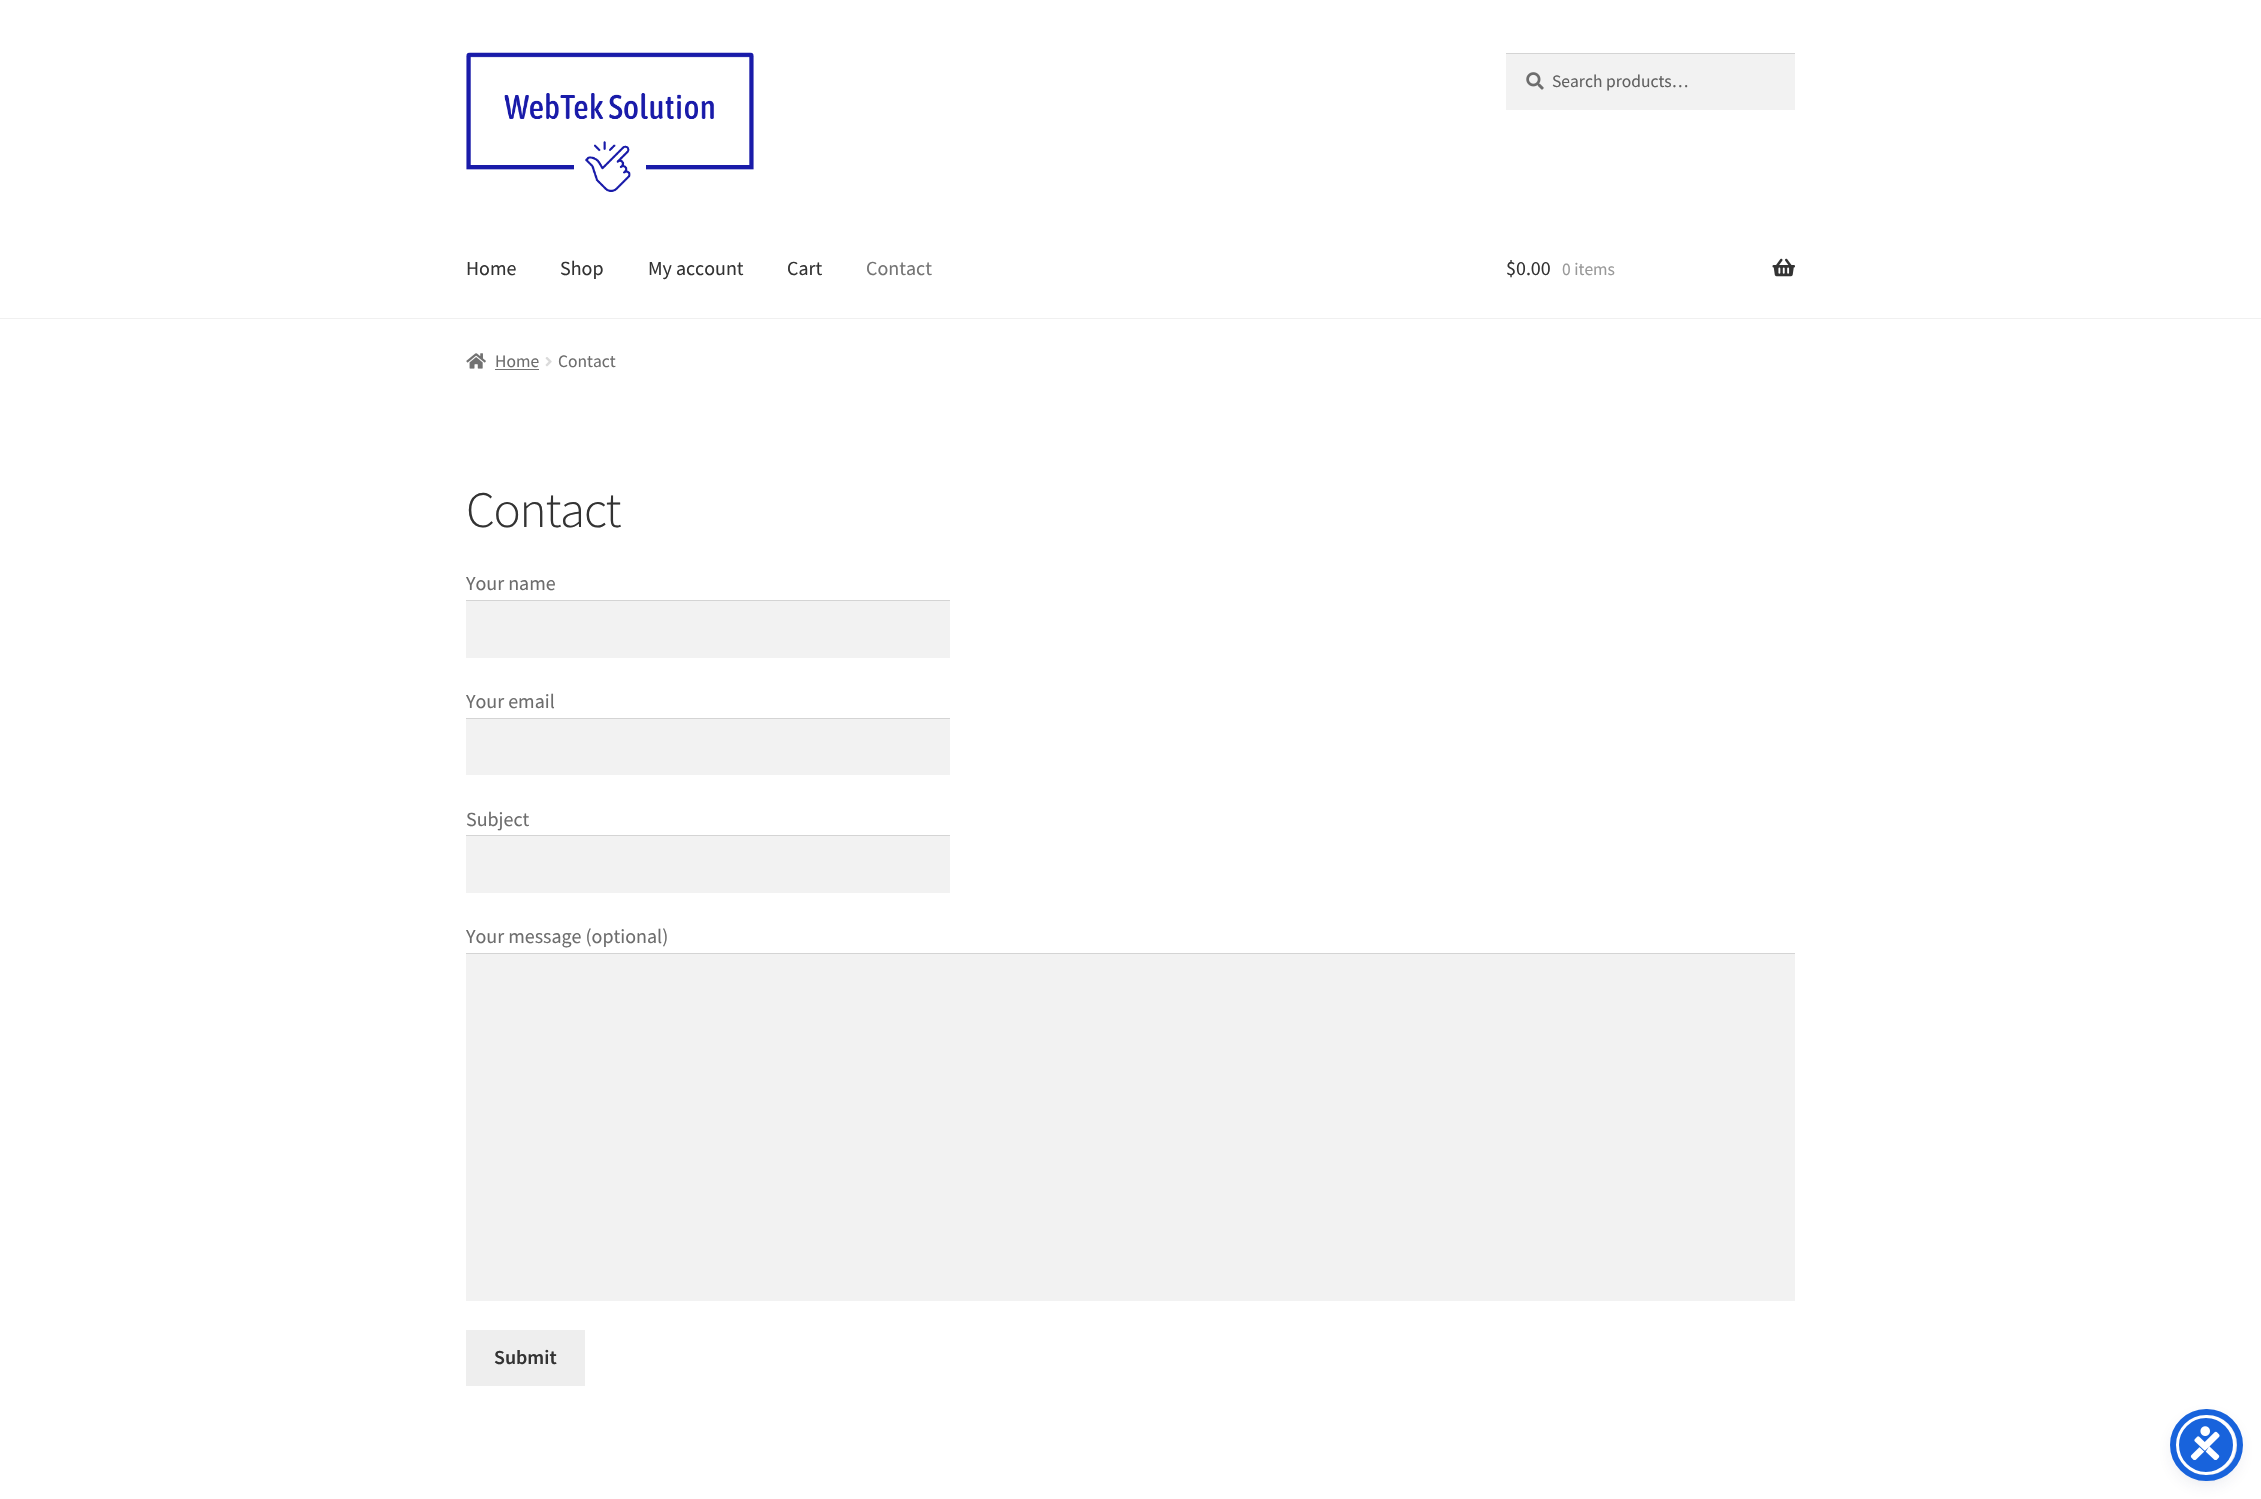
#include "include/core/SkBlurTypes.h"
#include "include/core/SkCanvas.h"
#include "include/core/SkData.h"
#include "include/core/SkFont.h"
#include "include/core/SkFontMgr.h"
#include "include/core/SkImage.h"
#include "include/core/SkMaskFilter.h"
#include "include/core/SkPaint.h"
#include "include/core/SkPathBuilder.h"
#include "include/core/SkTextBlob.h"
#include "include/effects/SkDashPathEffect.h"
#include "include/effects/SkGradientShader.h"
#include "include/utils/SkParsePath.h"

extern sk_sp<SkFontMgr> fontMgr;

void draw(SkCanvas* canvas) {
    SkPaint p;
    p.setAntiAlias(true);
    auto font = [&](const char* family, int weight, float size, bool italic = false) {
        SkFontStyle style(weight, SkFontStyle::kNormal_Width,
            italic ? SkFontStyle::kItalic_Slant : SkFontStyle::kUpright_Slant);
        SkFont result(fontMgr->matchFamilyStyle(family, style), size);
        result.setSubpixel(true);
        return result;
    };
    auto drawTracked = [&](const char* s, float x, float y, const SkFont& font, const SkPaint& ink, float letter, float word) {
        std::vector<SkGlyphID> glyphs(font.countText(s, strlen(s), SkTextEncoding::kUTF8));
        std::vector<float> xs(glyphs.size());
        font.textToGlyphs(s, strlen(s), SkTextEncoding::kUTF8, glyphs);
        font.getXPos(glyphs, xs, x);
        float extra = 0;
        for (size_t i = 0; i < glyphs.size(); i++) {
            xs[i] += extra;
            extra += letter + word * (glyphs[i] == font.unicharToGlyph(' '));
        }
        canvas->drawTextBlob(SkTextBlob::MakeFromPosHGlyphs(glyphs, xs, y, font), 0, 0, ink);
    };
    auto drawPhoto = [&](const char* path, float l, float t, float r, float b) {
        auto image = SkImages::DeferredFromEncodedData(SkData::MakeFromFileName(path));
        canvas->drawImageRect(image, SkRect::MakeLTRB(l, t, r, b), SkSamplingOptions());
    };
    canvas->clear(0xFFFFFFFF);
    p.setColor(0xFFF0F0F0);
    canvas->drawRect(SkRect::MakeLTRB(0, 318, 2261, 319), p);
    drawPhoto("media/1.png", 466, 52, 754, 192);
    p.setColor(0xFFF2F2F2);
    canvas->drawRect(SkRect::MakeLTRB(1506, 54, 1795, 110), p);
    drawPhoto("media/2.png", 1526, 72, 1544, 90);
    p.setColor(0xFFD4D4D4);
    canvas->drawRect(SkRect::MakeLTRB(1506, 53, 1795, 54), p);
    auto font1 = font("Source Sans Pro", 400, 17.5f);
    p.setColor(0xFF616161);
    canvas->drawString("Search products…", 1552, 87, font1, p);
    auto font2 = font("Source Sans Pro", 400, 20);
    p.setColor(0xFF333333);
    {
        const struct { const char* s; float x, y; } items[] = {
            {"Home", 466, 275},
            {"Shop", 560, 275},
            {"My account", 648, 275},
            {"Cart", 787, 275},
        };
        for (auto [s, x, y] : items) {
            canvas->drawString(s, x, y, font2, p);
        }
    }
    p.setColor(0xFF747474);
    canvas->drawString("Contact", 866, 275, font2, p);
    p.setColor(0xFF333333);
    canvas->drawString("$0.00", 1506, 275, font2, p);
    p.setColor(0xFF999999);
    canvas->drawString("0 items", 1562, 275, font1, p);
    drawPhoto("media/3.png", 1772, 258, 1795, 277);
    drawPhoto("media/4.png", 466, 353, 486, 369);
    p.setColor(0xFF6D6D6D);
    canvas->drawString("Home", 495, 367, font1, p);
    p.setColor(0xFF727272);
    canvas->drawRect(SkRect::MakeLTRB(495, 369, 539, 370), p);
    drawPhoto("media/5.png", 545, 357, 552, 367);
    p.setColor(0xFF6D6D6D);
    canvas->drawString("Contact", 558, 367, font1, p);
    auto font3 = font("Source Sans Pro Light", 300, 51);
    p.setColor(0xFF333333);
    drawTracked("Contact", 466, 527, font3, p, -1.25f, 0);
    p.setColor(0xFF6D6D6D);
    canvas->drawString("Your name", 466, 590, font2, p);
    p.setColor(0xFFF2F2F2);
    canvas->drawRect(SkRect::MakeLTRB(466, 601, 950, 658), p);
    p.setColor(0xFFD4D4D4);
    canvas->drawRect(SkRect::MakeLTRB(466, 600, 950, 601), p);
    p.setColor(0xFF6D6D6D);
    canvas->drawString("Your email", 466, 708, font2, p);
    p.setColor(0xFFF2F2F2);
    canvas->drawRect(SkRect::MakeLTRB(466, 719, 950, 775), p);
    p.setColor(0xFFD4D4D4);
    canvas->drawRect(SkRect::MakeLTRB(466, 718, 950, 719), p);
    p.setColor(0xFF6D6D6D);
    canvas->drawString("Subject", 466, 826, font2, p);
    p.setColor(0xFFF2F2F2);
    canvas->drawRect(SkRect::MakeLTRB(466, 836, 950, 893), p);
    p.setColor(0xFFD4D4D4);
    canvas->drawRect(SkRect::MakeLTRB(466, 835, 950, 836), p);
    p.setColor(0xFF6D6D6D);
    canvas->drawString("Your message (optional)", 466, 943, font2, p);
    {
        const struct { float l, t, r, b; SkColor color; } items[] = {
            {466, 954, 1795, 1301, 0xFFF2F2F2},
            {466, 953, 1795, 954, 0xFFD4D4D4},
            {466, 1330, 585, 1386, 0xFFEEEEEE},
        };
        for (auto [l, t, r, b, color] : items) {
            p.setColor(color);
            canvas->drawRect(SkRect::MakeLTRB(l, t, r, b), p);
        }
    }
    auto font4 = font("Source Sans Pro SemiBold", 600, 20);
    p.setColor(0xFF333333);
    canvas->drawString("Submit", 494, 1364, font4, p);
    p.setColor(0x335D6494);
    p.setMaskFilter(SkMaskFilter::MakeBlur(kNormal_SkBlurStyle, 2.5f));
    canvas->drawRoundRect(SkRect::MakeLTRB(2176, 1418, 2236, 1478), 30, 30, p);
    p.setMaskFilter(nullptr);
    p.setColor(0x26252C61);
    p.setMaskFilter(SkMaskFilter::MakeBlur(kNormal_SkBlurStyle, 9.5f));
    canvas->drawRoundRect(SkRect::MakeLTRB(2176, 1421, 2236, 1481), 30, 30, p);
    p.setMaskFilter(nullptr);
    p.setColor(0xFF1863DC);
    canvas->drawCircle(2206, 1445, 28.5f, p);
    p.setStyle(SkPaint::kStroke_Style);
    p.setStrokeWidth(3);
    p.setColor(0xFFFFFFFF);
    canvas->drawCircle(2206, 1445, 28.5f, p);
    p.setStrokeWidth(6);
    p.setColor(0xFF1863DC);
    canvas->drawRoundRect(SkRect::MakeLTRB(2173, 1412, 2240, 1478), 33, 33, p);
    drawPhoto("media/6.png", 2190, 1426, 2220, 1460);
}
